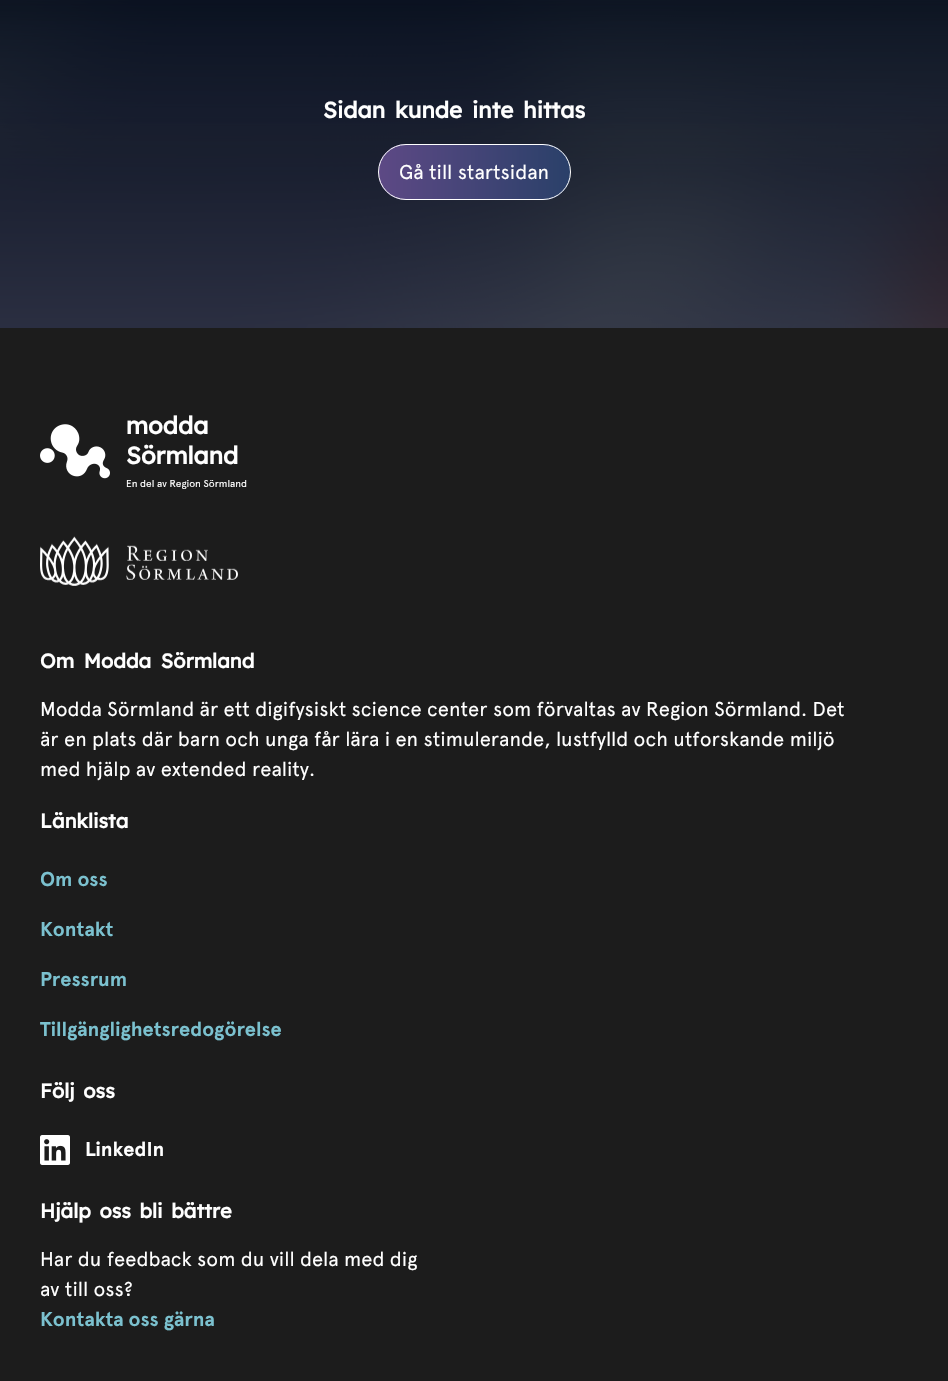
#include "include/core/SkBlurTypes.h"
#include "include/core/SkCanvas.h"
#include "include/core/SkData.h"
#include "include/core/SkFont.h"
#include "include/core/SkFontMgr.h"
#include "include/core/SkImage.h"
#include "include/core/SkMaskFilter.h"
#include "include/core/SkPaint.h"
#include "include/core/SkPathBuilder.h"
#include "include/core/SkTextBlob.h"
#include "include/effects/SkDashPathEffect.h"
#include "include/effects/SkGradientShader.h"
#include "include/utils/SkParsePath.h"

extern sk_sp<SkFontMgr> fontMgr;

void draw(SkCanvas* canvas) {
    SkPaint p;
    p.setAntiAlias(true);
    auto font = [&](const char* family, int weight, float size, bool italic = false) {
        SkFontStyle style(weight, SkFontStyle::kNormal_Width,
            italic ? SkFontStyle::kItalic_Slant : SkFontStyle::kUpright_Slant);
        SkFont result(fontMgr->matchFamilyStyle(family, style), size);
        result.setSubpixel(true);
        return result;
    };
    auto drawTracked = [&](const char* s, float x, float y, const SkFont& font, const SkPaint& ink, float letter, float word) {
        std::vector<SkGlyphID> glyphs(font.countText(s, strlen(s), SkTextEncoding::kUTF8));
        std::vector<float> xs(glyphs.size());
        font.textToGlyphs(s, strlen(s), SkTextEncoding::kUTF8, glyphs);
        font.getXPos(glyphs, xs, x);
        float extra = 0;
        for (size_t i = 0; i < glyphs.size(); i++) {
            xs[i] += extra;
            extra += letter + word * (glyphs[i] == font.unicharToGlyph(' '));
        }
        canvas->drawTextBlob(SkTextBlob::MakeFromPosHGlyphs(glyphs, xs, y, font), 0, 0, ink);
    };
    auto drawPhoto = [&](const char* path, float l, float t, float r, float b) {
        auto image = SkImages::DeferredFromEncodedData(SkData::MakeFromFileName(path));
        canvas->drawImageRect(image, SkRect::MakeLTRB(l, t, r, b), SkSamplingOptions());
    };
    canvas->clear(0xFFFFFFFF);
    drawPhoto("media/1.png", 0, 0, 948, 328);
    auto font1 = font("Lexend", 700, 22.5f);
    p.setColor(0xFFFFFFFF);
    drawTracked("Sidan kunde inte hittas", 323, 118, font1, p, 0, 3.5f);
    canvas->save();
    canvas->clipPath(SkPathBuilder().moveTo(406, 144).lineTo(543, 144).cubicTo(558.5f, 144, 571, 156.5f, 571, 172).cubicTo(571, 187.5f, 558.5f, 200, 543, 200).lineTo(406, 200).cubicTo(390.5f, 200, 378, 187.5f, 378, 172).cubicTo(378, 156.5f, 390.5f, 144, 406, 144).close().detach(), true);
    {
        const SkColor colors[] = {0xFF5D4985, 0xFF2A4069};
        const float stops[] = {0, 1};
        const SkPoint ends[] = {{379, 172}, {570, 172}};
        p.setShader(SkGradientShader::MakeLinear(ends, colors, stops, 2, SkTileMode::kClamp));
        p.setAlpha(255);
    }
    canvas->drawRect(SkRect::MakeLTRB(379, 144, 570, 200), p);
    canvas->restore();
    p.setStyle(SkPaint::kStroke_Style);
    p.setStrokeWidth(1);
    p.setShader(nullptr);
    p.setColor(0xFFFFFFFF);
    canvas->drawRoundRect(SkRect::MakeLTRB(378.5f, 144.5f, 570.5f, 199.5f), 27.5f, 27.5f, p);
    auto font2 = font("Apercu", 400, 20);
    p.setStyle(SkPaint::kFill_Style);
    canvas->drawString("Gå till startsidan", 399, 179, font2, p);
    p.setColor(0xFF1C1C1C);
    canvas->drawRect(SkRect::MakeLTRB(0, 328, 948, 1381), p);
    drawPhoto("media/2.png", 40, 424, 110, 479);
    auto font3 = font("Lexend", 700, 24);
    p.setColor(0xFFFFFFFF);
    canvas->drawString("modda", 126, 434, font3, p);
    canvas->drawString("Sörmland", 126, 464, font3, p);
    auto font4 = font("Apercu", 400, 10);
    canvas->drawString("En del av Region Sörmland", 126, 487, font4, p);
    drawPhoto("media/3.png", 40, 536, 238, 586);
    auto font5 = font("Lexend", 700, 20);
    drawTracked("Om Modda Sörmland", 40, 668, font5, p, 0, 4);
    {
        const struct { const char* s; float x, y; } items[] = {
            {"Modda Sörmland är ett digifysiskt science center som förvaltas av Region Sörmland. Det", 40, 716},
            {"är en plats där barn och unga får lära i en stimulerande, lustfylld och utforskande miljö", 40, 746},
            {"med hjälp av extended reality.", 40, 776},
        };
        for (auto [s, x, y] : items) {
            canvas->drawString(s, x, y, font2, p);
        }
    }
    canvas->drawString("Länklista", 40, 828, font5, p);
    auto font6 = font("Apercu", 700, 20);
    p.setColor(0xFF7BC1CF);
    {
        const struct { const char* s; float x, y; } items[] = {
            {"Om oss", 40, 886},
            {"Kontakt", 40, 936},
            {"Pressrum", 40, 986},
            {"Tillgänglighetsredogörelse", 40, 1036},
        };
        for (auto [s, x, y] : items) {
            canvas->drawString(s, x, y, font6, p);
        }
    }
    p.setColor(0xFFFFFFFF);
    drawTracked("Följ oss", 40, 1098, font5, p, 0, 3);
    drawPhoto("media/4.png", 40, 1135, 70, 1165);
    canvas->drawString("LinkedIn", 85, 1156, font6, p);
    drawTracked("Hjälp oss bli bättre", 40, 1218, font5, p, 0, 3);
    canvas->drawString("Har du feedback som du vill dela med dig", 40, 1266, font2, p);
    canvas->drawString("av till oss?", 40, 1296, font2, p);
    p.setColor(0xFF7BC1CF);
    canvas->drawString("Kontakta oss gärna", 40, 1326, font6, p);
}
